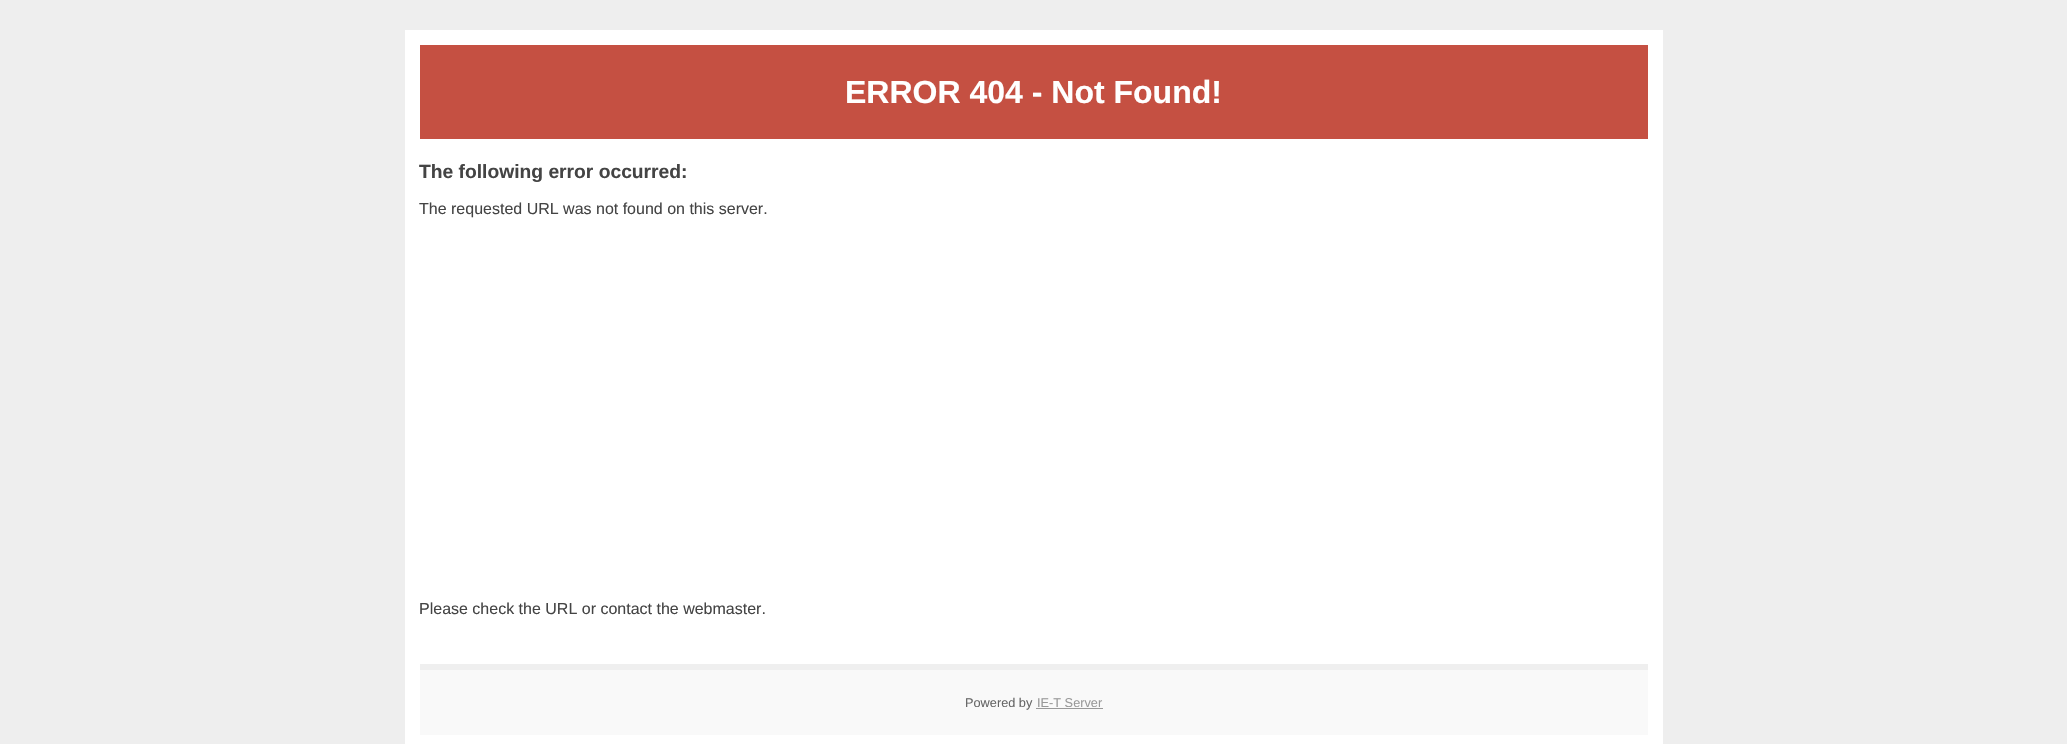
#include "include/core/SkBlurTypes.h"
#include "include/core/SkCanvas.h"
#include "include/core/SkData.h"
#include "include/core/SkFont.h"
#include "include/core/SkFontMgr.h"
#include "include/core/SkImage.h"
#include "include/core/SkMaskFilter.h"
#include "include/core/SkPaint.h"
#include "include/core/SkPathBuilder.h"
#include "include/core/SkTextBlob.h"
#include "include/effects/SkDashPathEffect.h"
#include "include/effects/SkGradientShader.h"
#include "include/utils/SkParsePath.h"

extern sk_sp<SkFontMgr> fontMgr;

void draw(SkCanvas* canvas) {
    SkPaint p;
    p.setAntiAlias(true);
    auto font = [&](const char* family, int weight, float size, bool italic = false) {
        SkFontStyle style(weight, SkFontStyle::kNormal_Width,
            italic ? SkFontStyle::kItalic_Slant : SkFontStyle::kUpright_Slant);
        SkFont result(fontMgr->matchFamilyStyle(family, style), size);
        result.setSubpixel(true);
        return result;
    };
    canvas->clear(0xFFEEEEEE);
    p.setColor(0xFFFFFFFF);
    canvas->drawRect(SkRect::MakeLTRB(405, 30, 1663, 744), p);
    p.setColor(0xFFC55042);
    canvas->drawRect(SkRect::MakeLTRB(420, 45, 1648, 139), p);
    auto font1 = font("Liberation Sans", 700, 32);
    p.setColor(0xFFFFFFFF);
    canvas->drawString("ERROR 404 - Not Found!", 845, 103, font1, p);
    auto font2 = font("Liberation Sans", 700, 19.25f);
    p.setColor(0xFF444444);
    canvas->drawString("The following error occurred:", 419, 178, font2, p);
    auto font3 = font("Liberation Sans", 400, 16);
    canvas->drawString("The requested URL was not found on this server.", 419, 214, font3, p);
    canvas->drawString("Please check the URL or contact the webmaster.", 419, 614, font3, p);
    p.setColor(0xFFF9F9F9);
    canvas->drawRect(SkRect::MakeLTRB(420, 670, 1648, 735), p);
    p.setColor(0xFFEFEFEF);
    canvas->drawRect(SkRect::MakeLTRB(420, 664, 1648, 670), p);
    auto font4 = font("Liberation Sans", 400, 12.75f);
    p.setColor(0xFF666666);
    canvas->drawString("Powered by", 965, 707, font4, p);
    p.setColor(0xFF999999);
    canvas->drawString("IE-T Server", 1037, 707, font4, p);
    canvas->drawRect(SkRect::MakeLTRB(1036, 708, 1103, 709), p);
}
